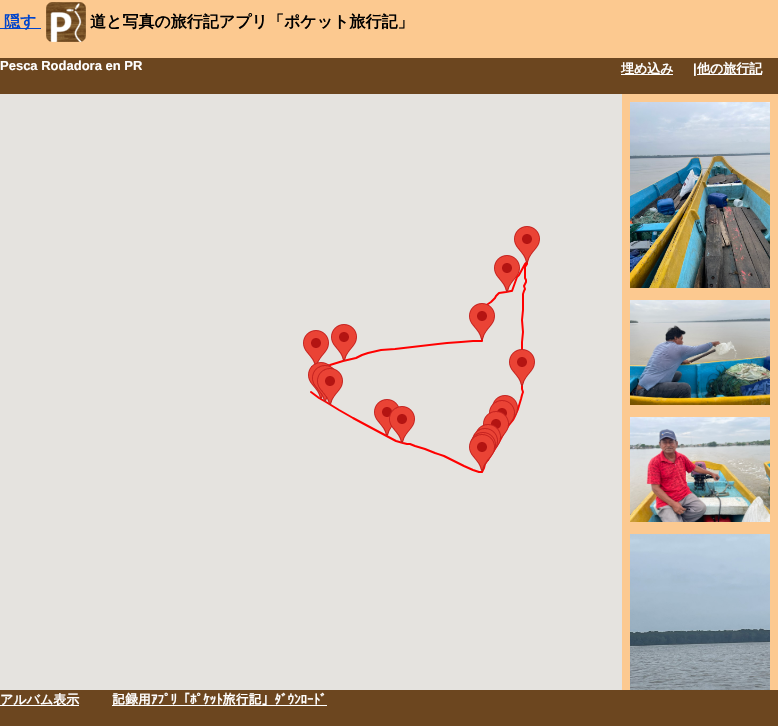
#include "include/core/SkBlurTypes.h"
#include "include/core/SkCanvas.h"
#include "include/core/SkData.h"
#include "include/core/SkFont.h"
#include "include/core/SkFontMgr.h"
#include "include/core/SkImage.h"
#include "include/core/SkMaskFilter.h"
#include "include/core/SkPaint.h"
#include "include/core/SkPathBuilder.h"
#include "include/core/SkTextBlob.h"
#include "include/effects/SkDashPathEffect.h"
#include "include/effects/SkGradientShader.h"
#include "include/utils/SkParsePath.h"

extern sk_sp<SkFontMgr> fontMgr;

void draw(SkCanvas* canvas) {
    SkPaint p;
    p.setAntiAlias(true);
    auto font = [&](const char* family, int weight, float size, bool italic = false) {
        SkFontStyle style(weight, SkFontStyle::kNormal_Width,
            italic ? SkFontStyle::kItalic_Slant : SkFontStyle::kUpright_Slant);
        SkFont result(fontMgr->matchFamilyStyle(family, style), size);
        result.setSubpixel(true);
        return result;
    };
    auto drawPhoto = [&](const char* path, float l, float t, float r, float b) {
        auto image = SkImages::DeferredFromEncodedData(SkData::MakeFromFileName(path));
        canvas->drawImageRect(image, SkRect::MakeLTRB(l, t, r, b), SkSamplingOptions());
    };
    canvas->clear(0xFFFCC990);
    p.setColor(0xFF0044CC);
    canvas->drawRect(SkRect::MakeLTRB(0, 28, 41, 29), p);
    auto font1 = font("WenQuanYi Zen Hei", 700, 16);
    canvas->drawString("隠す", 4, 27, font1, p);
    drawPhoto("media/1.png", 46, 2, 86, 42);
    p.setColor(0xFF000000);
    canvas->drawString("道と写真の旅行記アプリ「ポケット旅行記」", 90, 27, font1, p);
    p.setColor(0xFF6C461F);
    canvas->drawRect(SkRect::MakeLTRB(0, 58, 778, 94), p);
    auto font2 = font("Liberation Sans", 700, 13);
    p.setColor(0xFFFFFFFF);
    canvas->drawString("Pesca Rodadora en PR", 0, 70, font2, p);
    canvas->drawRect(SkRect::MakeLTRB(621, 74, 673, 75), p);
    auto font3 = font("WenQuanYi Zen Hei", 700, 13);
    canvas->drawString("埋め込み", 621, 73, font3, p);
    canvas->drawString("|", 693, 73, font2, p);
    canvas->drawRect(SkRect::MakeLTRB(697, 74, 762, 75), p);
    canvas->drawString("他の旅行記", 697, 73, font3, p);
    p.setColor(0xFFE5E3DF);
    canvas->drawRect(SkRect::MakeLTRB(0, 94, 622, 690), p);
    drawPhoto("media/21.png", 438, 261, 528, 473);
    drawPhoto("media/2.png", 514, 226, 540, 263);
    drawPhoto("media/3.png", 494, 255, 520, 292);
    drawPhoto("media/20.png", 310, 343, 438, 455);
    drawPhoto("media/4.png", 303, 330, 329, 364);
    drawPhoto("media/5.png", 331, 324, 357, 361);
    drawPhoto("media/6.png", 469, 303, 495, 340);
    drawPhoto("media/7.png", 509, 349, 535, 386);
    drawPhoto("media/8.png", 308, 362, 331, 399);
    drawPhoto("media/9.png", 312, 365, 335, 402);
    drawPhoto("media/10.png", 317, 368, 343, 405);
    drawPhoto("media/11.png", 374, 399, 399, 436);
    drawPhoto("media/12.png", 492, 395, 518, 426);
    drawPhoto("media/13.png", 389, 406, 415, 443);
    drawPhoto("media/14.png", 489, 400, 515, 437);
    drawPhoto("media/15.png", 483, 411, 509, 448);
    drawPhoto("media/16.png", 475, 424, 501, 461);
    drawPhoto("media/17.png", 472, 428, 498, 465);
    drawPhoto("media/18.png", 470, 432, 496, 469);
    drawPhoto("media/19.png", 469, 434, 495, 471);
    drawPhoto("media/22.png", 630, 102, 770, 288);
    drawPhoto("media/23.png", 630, 300, 770, 405);
    drawPhoto("media/24.png", 630, 417, 770, 522);
    drawPhoto("media/25.png", 630, 534, 770, 690);
    p.setColor(0xFF6C461F);
    canvas->drawRect(SkRect::MakeLTRB(0, 690, 778, 726), p);
    p.setColor(0xFFFFFFFF);
    canvas->drawRect(SkRect::MakeLTRB(0, 705, 79, 706), p);
    canvas->drawString("アルバム表示", 0, 704, font3, p);
    auto font4 = font("IPAGothic", 700, 13);
    canvas->drawString("記録用ｱﾌﾟﾘ「ﾎﾟｹｯﾄ旅行記」ﾀﾞｳﾝﾛｰﾄﾞ", 112, 704, font4, p);
    canvas->drawRect(SkRect::MakeLTRB(112, 705, 327, 706), p);
}
